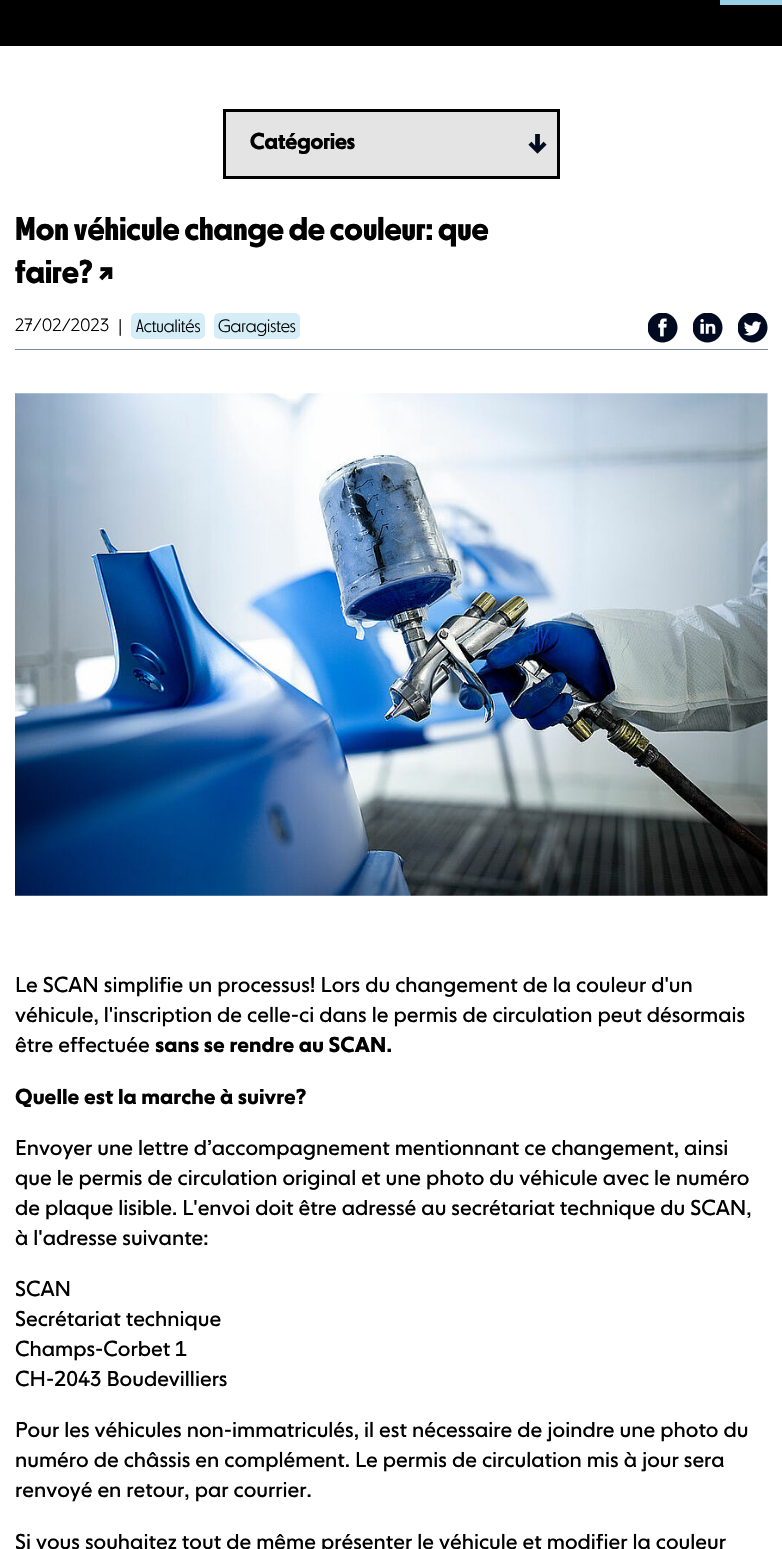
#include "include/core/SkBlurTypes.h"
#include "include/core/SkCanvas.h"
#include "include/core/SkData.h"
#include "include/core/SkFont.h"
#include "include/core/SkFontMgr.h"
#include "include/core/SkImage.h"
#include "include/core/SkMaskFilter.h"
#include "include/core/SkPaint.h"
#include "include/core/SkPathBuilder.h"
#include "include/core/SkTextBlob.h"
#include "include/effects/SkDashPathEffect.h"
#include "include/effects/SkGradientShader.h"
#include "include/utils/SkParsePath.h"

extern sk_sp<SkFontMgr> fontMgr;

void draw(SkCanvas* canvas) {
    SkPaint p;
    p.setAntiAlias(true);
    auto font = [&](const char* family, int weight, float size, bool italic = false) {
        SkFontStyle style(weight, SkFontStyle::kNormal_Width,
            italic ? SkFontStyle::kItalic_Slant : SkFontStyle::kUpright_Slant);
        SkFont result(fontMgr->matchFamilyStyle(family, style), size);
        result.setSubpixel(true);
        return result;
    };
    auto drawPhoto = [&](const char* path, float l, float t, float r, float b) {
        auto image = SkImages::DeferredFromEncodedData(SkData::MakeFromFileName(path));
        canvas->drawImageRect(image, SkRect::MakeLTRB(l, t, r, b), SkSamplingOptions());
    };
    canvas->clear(0xFFFFFFFF);
    {
        const struct { float l, t, r, b; SkColor color; } items[] = {
            {0, 0, 782, 46, 0xFF000000},
            {720, 0, 782, 5, 0xFF98D1E6},
            {226, 112, 557, 176, 0xFFE4E4E4},
        };
        for (auto [l, t, r, b, color] : items) {
            p.setColor(color);
            canvas->drawRect(SkRect::MakeLTRB(l, t, r, b), p);
        }
    }
    drawPhoto("media/1.png", 528, 134, 547, 154);
    p.setStyle(SkPaint::kStroke_Style);
    p.setStrokeWidth(3);
    p.setColor(0xFF000000);
    canvas->drawRect(SkRect::MakeLTRB(224.5f, 110.5f, 558.5f, 177.5f), p);
    auto font1 = font("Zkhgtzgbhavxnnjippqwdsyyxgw", 700, 22.5f);
    p.setStyle(SkPaint::kFill_Style);
    canvas->drawString("Catégories", 250, 149, font1, p);
    auto font2 = font("Zkhgtzgbhavxnnjippqwdsyyxgw", 700, 32.5f);
    canvas->drawString("Mon véhicule change de couleur: que", 15, 240, font2, p);
    canvas->drawString("faire? ↗", 15, 283, font2, p);
    p.setColor(0xFF748AA5);
    canvas->drawRect(SkRect::MakeLTRB(15, 349, 768, 350), p);
    auto font3 = font("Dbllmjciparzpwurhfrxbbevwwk", 200, 17.5f);
    p.setColor(0xFF000000);
    canvas->drawString("27/02/2023", 15, 331, font3, p);
    auto font4 = font("Liberation Sans", 400, 17.5f);
    p.setColor(0xFF333333);
    canvas->drawString("|", 118, 332, font4, p);
    p.setColor(0xFFD5EDF6);
    canvas->drawRoundRect(SkRect::MakeLTRB(131, 313, 205, 339), 5, 5, p);
    p.setColor(0xFF000000);
    canvas->drawString("Actualités", 136, 332, font3, p);
    p.setColor(0xFFD5EDF6);
    canvas->drawRoundRect(SkRect::MakeLTRB(214, 313, 300, 339), 5, 5, p);
    p.setColor(0xFF000000);
    canvas->drawString("Garagistes", 218, 332, font3, p);
    drawPhoto("media/2.png", 648, 313, 678, 343);
    drawPhoto("media/3.png", 693, 313, 723, 343);
    drawPhoto("media/4.png", 738, 313, 768, 343);
    drawPhoto("media/5.png", 15, 393, 768, 896);
    auto font5 = font("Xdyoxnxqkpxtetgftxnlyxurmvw", 400, 21.25f);
    {
        const struct { const char* s; float x, y; } items[] = {
            {"Le SCAN simplifie un processus! Lors du changement de la couleur d'un", 15, 992},
            {"véhicule, l'inscription de celle-ci dans le permis de circulation peut désormais", 15, 1022},
            {"être effectuée", 15, 1052},
        };
        for (auto [s, x, y] : items) {
            canvas->drawString(s, x, y, font5, p);
        }
    }
    auto font6 = font("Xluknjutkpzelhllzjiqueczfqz", 700, 21.25f);
    canvas->drawString("sans se rendre au SCAN.", 155, 1052, font6, p);
    canvas->drawString("Quelle est la marche à suivre?", 15, 1104, font6, p);
    {
        const struct { const char* s; float x, y; } items[] = {
            {"Envoyer une lettre d’accompagnement mentionnant ce changement, ainsi", 15, 1155},
            {"que le permis de circulation original et une photo du véhicule avec le numéro", 15, 1185},
            {"de plaque lisible. L'envoi doit être adressé au secrétariat technique du SCAN,", 15, 1215},
            {"à l'adresse suivante:", 15, 1245},
            {"SCAN", 15, 1296},
            {"Secrétariat technique", 15, 1326},
            {"Champs-Corbet 1", 15, 1356},
            {"CH-2043 Boudevilliers", 15, 1386},
            {"Pour les véhicules non-immatriculés, il est nécessaire de joindre une photo du", 15, 1437},
            {"numéro de châssis en complément. Le permis de circulation mis à jour sera", 15, 1467},
            {"renvoyé en retour, par courrier.", 15, 1497},
            {"Si vous souhaitez tout de même présenter le véhicule et modifier la couleur", 15, 1549},
        };
        for (auto [s, x, y] : items) {
            canvas->drawString(s, x, y, font5, p);
        }
    }
}
